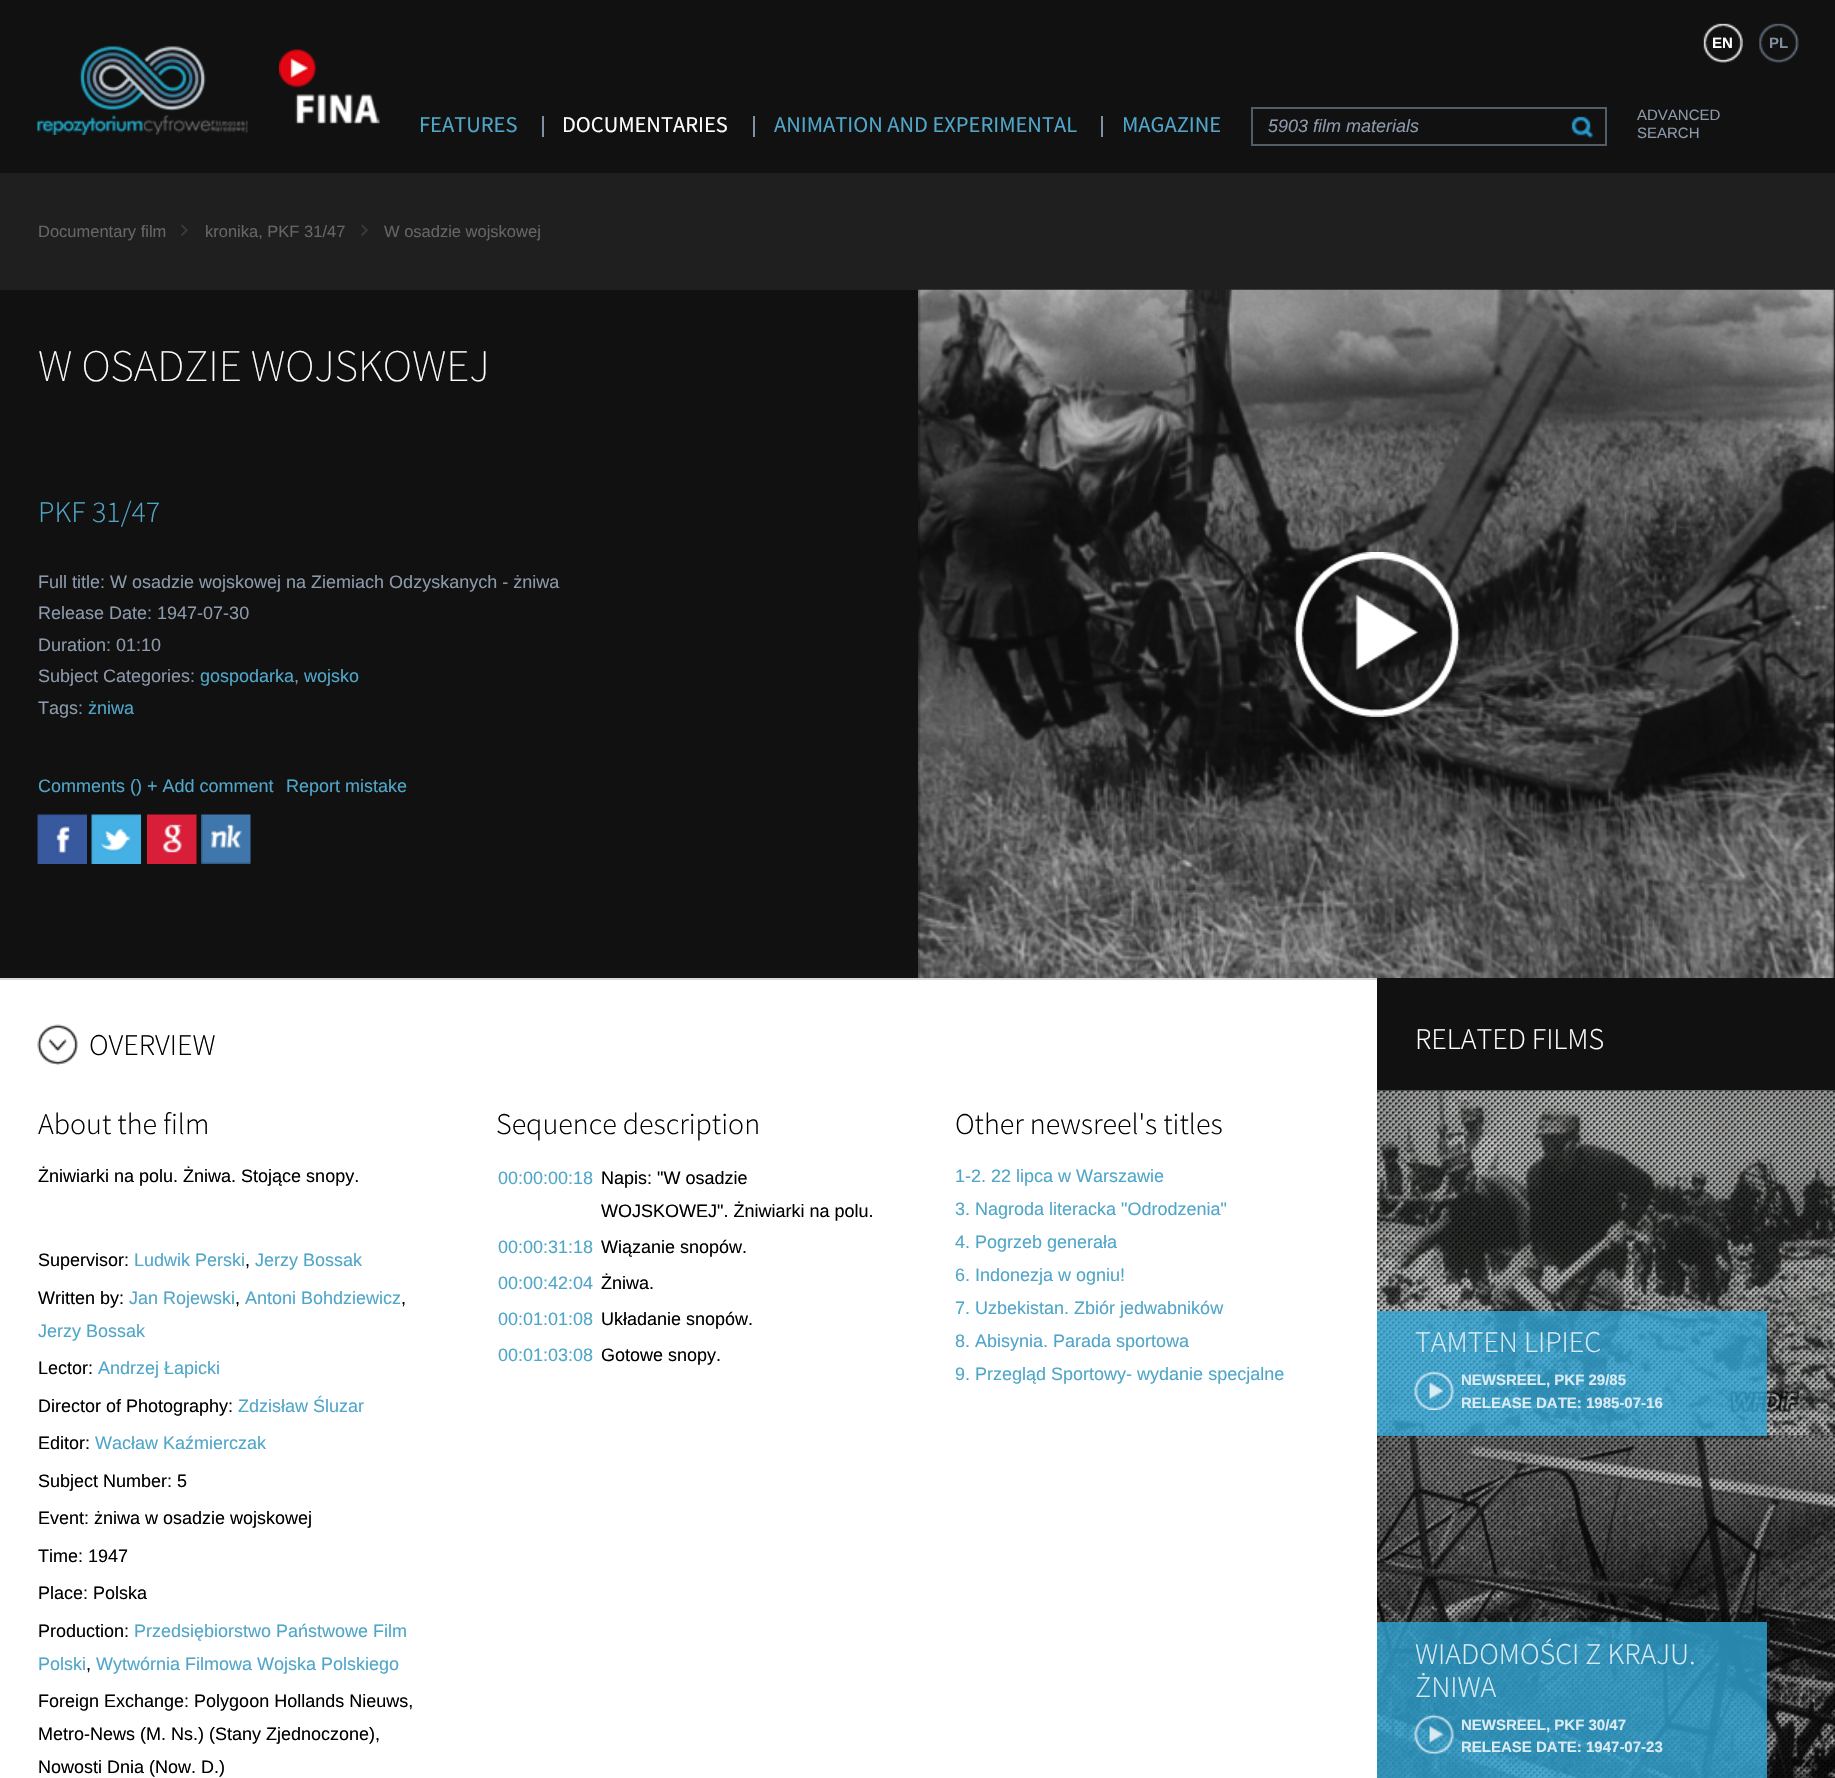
#include "include/core/SkBlurTypes.h"
#include "include/core/SkCanvas.h"
#include "include/core/SkData.h"
#include "include/core/SkFont.h"
#include "include/core/SkFontMgr.h"
#include "include/core/SkImage.h"
#include "include/core/SkMaskFilter.h"
#include "include/core/SkPaint.h"
#include "include/core/SkPathBuilder.h"
#include "include/core/SkTextBlob.h"
#include "include/effects/SkDashPathEffect.h"
#include "include/effects/SkGradientShader.h"
#include "include/utils/SkParsePath.h"

extern sk_sp<SkFontMgr> fontMgr;

void draw(SkCanvas* canvas) {
    SkPaint p;
    p.setAntiAlias(true);
    auto font = [&](const char* family, int weight, float size, bool italic = false) {
        SkFontStyle style(weight, SkFontStyle::kNormal_Width,
            italic ? SkFontStyle::kItalic_Slant : SkFontStyle::kUpright_Slant);
        SkFont result(fontMgr->matchFamilyStyle(family, style), size);
        result.setSubpixel(true);
        return result;
    };
    auto drawPhoto = [&](const char* path, float l, float t, float r, float b) {
        auto image = SkImages::DeferredFromEncodedData(SkData::MakeFromFileName(path));
        canvas->drawImageRect(image, SkRect::MakeLTRB(l, t, r, b), SkSamplingOptions());
    };
    canvas->clear(0xFF111111);
    drawPhoto("media/1.png", 1703, 23, 1743, 63);
    drawPhoto("media/2.png", 1759, 23, 1799, 63);
    auto font1 = font("Liberation Sans", 700, 15);
    p.setColor(0xFFFFFFFF);
    canvas->drawString("EN", 1712, 48, font1, p);
    p.setColor(0xFF8090A2);
    canvas->drawString("PL", 1769, 48, font1, p);
    drawPhoto("media/3.png", 37, 46, 248, 135);
    drawPhoto("media/4.png", 279, 49, 380, 124);
    auto font2 = font("Source Sans Pro", 400, 22.5f);
    p.setColor(0xFF50A6C9);
    canvas->drawString("FEATURES", 419, 132, font2, p);
    p.setColor(0xFFFFFFFF);
    canvas->drawString("DOCUMENTARIES", 562, 132, font2, p);
    p.setColor(0xFF8090A2);
    canvas->drawRect(SkRect::MakeLTRB(542, 116, 544, 137), p);
    p.setColor(0xFF50A6C9);
    canvas->drawString("ANIMATION AND EXPERIMENTAL", 774, 132, font2, p);
    p.setColor(0xFF8090A2);
    canvas->drawRect(SkRect::MakeLTRB(753, 116, 755, 137), p);
    p.setColor(0xFF50A6C9);
    canvas->drawString("MAGAZINE", 1122, 132, font2, p);
    p.setColor(0xFF8090A2);
    canvas->drawRect(SkRect::MakeLTRB(1101, 116, 1103, 137), p);
    p.setStyle(SkPaint::kStroke_Style);
    p.setStrokeWidth(2);
    p.setColor(0xFF535D68);
    canvas->drawRect(SkRect::MakeLTRB(1252, 108, 1606, 145), p);
    auto font3 = font("Liberation Sans", 400, 18, true);
    p.setStyle(SkPaint::kFill_Style);
    p.setColor(0xFF8B99AA);
    canvas->drawString("5903 film materials", 1268, 132, font3, p);
    drawPhoto("media/5.png", 1571, 116, 1593, 138);
    auto font4 = font("Liberation Sans", 400, 15);
    canvas->drawString("ADVANCED", 1637, 120, font4, p);
    canvas->drawString("SEARCH", 1637, 138, font4, p);
    p.setColor(0xFF1F1F1F);
    canvas->drawRect(SkRect::MakeLTRB(0, 173, 1835, 290), p);
    auto font5 = font("Liberation Sans", 400, 16.5f);
    p.setColor(0xFF656565);
    canvas->drawString("Documentary film", 38, 237, font5, p);
    drawPhoto("media/6.png", 181, 224, 188, 236);
    canvas->drawString("kronika, PKF 31/47", 205, 237, font5, p);
    drawPhoto("media/7.png", 361, 224, 368, 236);
    canvas->drawString("W osadzie wojskowej", 384, 237, font5, p);
    auto font6 = font("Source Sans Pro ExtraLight", 200, 45);
    p.setColor(0xFFFFFFFF);
    canvas->drawString("W OSADZIE WOJSKOWEJ", 38, 381, font6, p);
    drawPhoto("media/8.png", 918, 289, 1835, 978);
    drawPhoto("media/9.png", 1294, 552, 1460, 717);
    auto font7 = font("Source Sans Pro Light", 300, 30);
    p.setColor(0xFF50A6C9);
    canvas->drawString("PKF", 38, 522, font7, p);
    canvas->drawString("31/47", 92, 522, font7, p);
    auto font8 = font("Liberation Sans", 400, 18);
    p.setColor(0xFF8B99AA);
    {
        const struct { const char* s; float x, y; } items[] = {
            {"Full title: W osadzie wojskowej na Ziemiach Odzyskanych - żniwa", 38, 588},
            {"Release Date: 1947-07-30", 38, 619},
            {"Duration: 01:10", 38, 651},
            {"Subject Categories:", 38, 682},
        };
        for (auto [s, x, y] : items) {
            canvas->drawString(s, x, y, font8, p);
        }
    }
    p.setColor(0xFF50A6C9);
    canvas->drawString("gospodarka", 200, 682, font8, p);
    p.setColor(0xFF8B99AA);
    canvas->drawString(",", 294, 682, font8, p);
    p.setColor(0xFF50A6C9);
    canvas->drawString("wojsko", 304, 682, font8, p);
    p.setColor(0xFF8B99AA);
    canvas->drawString("Tags:", 38, 714, font8, p);
    p.setColor(0xFF50A6C9);
    {
        const struct { const char* s; float x, y; } items[] = {
            {"żniwa", 88, 714},
            {"Comments () + Add comment", 38, 792},
            {"Report mistake", 286, 792},
        };
        for (auto [s, x, y] : items) {
            canvas->drawString(s, x, y, font8, p);
        }
    }
    drawPhoto("media/10.png", 37, 814, 87, 864);
    drawPhoto("media/11.png", 91, 814, 141, 864);
    drawPhoto("media/12.png", 147, 814, 197, 864);
    drawPhoto("media/13.png", 201, 814, 251, 864);
    p.setColor(0xFFFFFFFF);
    canvas->drawRect(SkRect::MakeLTRB(0, 980, 1377, 1778), p);
    p.setColor(0xFFD6D8DB);
    canvas->drawRect(SkRect::MakeLTRB(0, 978, 1377, 980), p);
    drawPhoto("media/14.png", 37, 1024, 78, 1065);
    p.setColor(0xFF000000);
    canvas->drawString("OVERVIEW", 89, 1055, font7, p);
    canvas->drawString("About the film", 38, 1134, font7, p);
    canvas->drawString("Żniwiarki na polu. Żniwa. Stojące snopy.", 38, 1182, font8, p);
    canvas->drawString("Supervisor:", 38, 1266, font8, p);
    p.setColor(0xFF50A6C9);
    canvas->drawString("Ludwik Perski", 134, 1266, font8, p);
    p.setColor(0xFF000000);
    canvas->drawString(",", 245, 1266, font8, p);
    p.setColor(0xFF50A6C9);
    canvas->drawString("Jerzy Bossak", 255, 1266, font8, p);
    p.setColor(0xFF000000);
    canvas->drawString("Written by:", 38, 1304, font8, p);
    p.setColor(0xFF50A6C9);
    canvas->drawString("Jan Rojewski", 129, 1304, font8, p);
    p.setColor(0xFF000000);
    canvas->drawString(",", 235, 1304, font8, p);
    p.setColor(0xFF50A6C9);
    canvas->drawString("Antoni Bohdziewicz", 245, 1304, font8, p);
    p.setColor(0xFF000000);
    canvas->drawString(",", 401, 1304, font8, p);
    p.setColor(0xFF50A6C9);
    canvas->drawString("Jerzy Bossak", 38, 1337, font8, p);
    p.setColor(0xFF000000);
    canvas->drawString("Lector:", 38, 1374, font8, p);
    p.setColor(0xFF50A6C9);
    canvas->drawString("Andrzej Łapicki", 98, 1374, font8, p);
    p.setColor(0xFF000000);
    canvas->drawString("Director of Photography:", 38, 1412, font8, p);
    p.setColor(0xFF50A6C9);
    canvas->drawString("Zdzisław Śluzar", 238, 1412, font8, p);
    p.setColor(0xFF000000);
    canvas->drawString("Editor:", 38, 1449, font8, p);
    p.setColor(0xFF50A6C9);
    canvas->drawString("Wacław Kaźmierczak", 95, 1449, font8, p);
    p.setColor(0xFF000000);
    {
        const struct { const char* s; float x, y; } items[] = {
            {"Subject Number: 5", 38, 1487},
            {"Event: żniwa w osadzie wojskowej", 38, 1524},
            {"Time: 1947", 38, 1562},
            {"Place: Polska", 38, 1599},
            {"Production:", 38, 1637},
        };
        for (auto [s, x, y] : items) {
            canvas->drawString(s, x, y, font8, p);
        }
    }
    p.setColor(0xFF50A6C9);
    canvas->drawString("Przedsiębiorstwo Państwowe Film", 134, 1637, font8, p);
    canvas->drawString("Polski", 38, 1670, font8, p);
    p.setColor(0xFF000000);
    canvas->drawString(",", 86, 1670, font8, p);
    p.setColor(0xFF50A6C9);
    canvas->drawString("Wytwórnia Filmowa Wojska Polskiego", 96, 1670, font8, p);
    p.setColor(0xFF000000);
    {
        const struct { const char* s; float x, y; } items[] = {
            {"Foreign Exchange: Polygoon Hollands Nieuws,", 38, 1707},
            {"Metro-News (M. Ns.) (Stany Zjednoczone),", 38, 1740},
            {"Nowosti Dnia (Now. D.)", 38, 1773},
        };
        for (auto [s, x, y] : items) {
            canvas->drawString(s, x, y, font8, p);
        }
    }
    canvas->drawString("Sequence description", 496, 1134, font7, p);
    p.setColor(0xFF50A6C9);
    canvas->drawString("00:00:00:18", 498, 1184, font8, p);
    p.setColor(0xFF000000);
    canvas->drawString("Napis: \"W osadzie", 601, 1184, font8, p);
    canvas->drawString("WOJSKOWEJ\". Żniwiarki na polu.", 601, 1217, font8, p);
    p.setColor(0xFF50A6C9);
    canvas->drawString("00:00:31:18", 498, 1253, font8, p);
    p.setColor(0xFF000000);
    canvas->drawString("Wiązanie snopów.", 601, 1253, font8, p);
    p.setColor(0xFF50A6C9);
    canvas->drawString("00:00:42:04", 498, 1289, font8, p);
    p.setColor(0xFF000000);
    canvas->drawString("Żniwa.", 601, 1289, font8, p);
    p.setColor(0xFF50A6C9);
    canvas->drawString("00:01:01:08", 498, 1325, font8, p);
    p.setColor(0xFF000000);
    canvas->drawString("Układanie snopów.", 601, 1325, font8, p);
    p.setColor(0xFF50A6C9);
    canvas->drawString("00:01:03:08", 498, 1361, font8, p);
    p.setColor(0xFF000000);
    canvas->drawString("Gotowe snopy.", 601, 1361, font8, p);
    canvas->drawString("Other newsreel's titles", 955, 1134, font7, p);
    p.setColor(0xFF50A6C9);
    {
        const struct { const char* s; float x, y; } items[] = {
            {"1-2. 22 lipca w Warszawie", 955, 1182},
            {"3. Nagroda literacka \"Odrodzenia\"", 955, 1215},
            {"4. Pogrzeb generała", 955, 1248},
            {"6. Indonezja w ogniu!", 955, 1281},
            {"7. Uzbekistan. Zbiór jedwabników", 955, 1314},
            {"8. Abisynia. Parada sportowa", 955, 1347},
            {"9. Przegląd Sportowy- wydanie specjalne", 955, 1380},
        };
        for (auto [s, x, y] : items) {
            canvas->drawString(s, x, y, font8, p);
        }
    }
    p.setColor(0xFFFFFFFF);
    canvas->drawString("RELATED FILMS", 1415, 1049, font7, p);
    drawPhoto("media/15.png", 1377, 1090, 1835, 1436);
    drawPhoto("media/16.png", 1377, 1090, 1835, 1436);
    drawPhoto("media/19.png", 1377, 1435, 1835, 1436);
    drawPhoto("media/20.png", 1377, 1435, 1835, 1778);
    drawPhoto("media/17.png", 1377, 1090, 1835, 1436);
    drawPhoto("media/21.png", 1377, 1435, 1835, 1778);
    p.setColor(0xCC30A4D4);
    canvas->drawRect(SkRect::MakeLTRB(1377, 1311, 1767, 1436), p);
    p.setColor(0xFFD8EBF2);
    canvas->drawString("TAMTEN LIPIEC", 1415, 1352, font7, p);
    drawPhoto("media/18.png", 1414, 1371, 1454, 1410);
    canvas->drawString("NEWSREEL, PKF 29/85", 1461, 1385, font1, p);
    canvas->drawString("RELEASE DATE: 1985-07-16", 1461, 1408, font1, p);
    p.setColor(0xCC30A4D4);
    canvas->drawRect(SkRect::MakeLTRB(1377, 1622, 1767, 1778), p);
    p.setColor(0xFFD8EBF2);
    canvas->drawString("WIADOMOŚCI Z KRAJU.", 1415, 1664, font7, p);
    canvas->drawString("ŻNIWA", 1415, 1697, font7, p);
    drawPhoto("media/22.png", 1414, 1714, 1454, 1754);
    canvas->drawString("NEWSREEL, PKF 30/47", 1461, 1730, font1, p);
    canvas->drawString("RELEASE DATE: 1947-07-23", 1461, 1752, font1, p);
}
